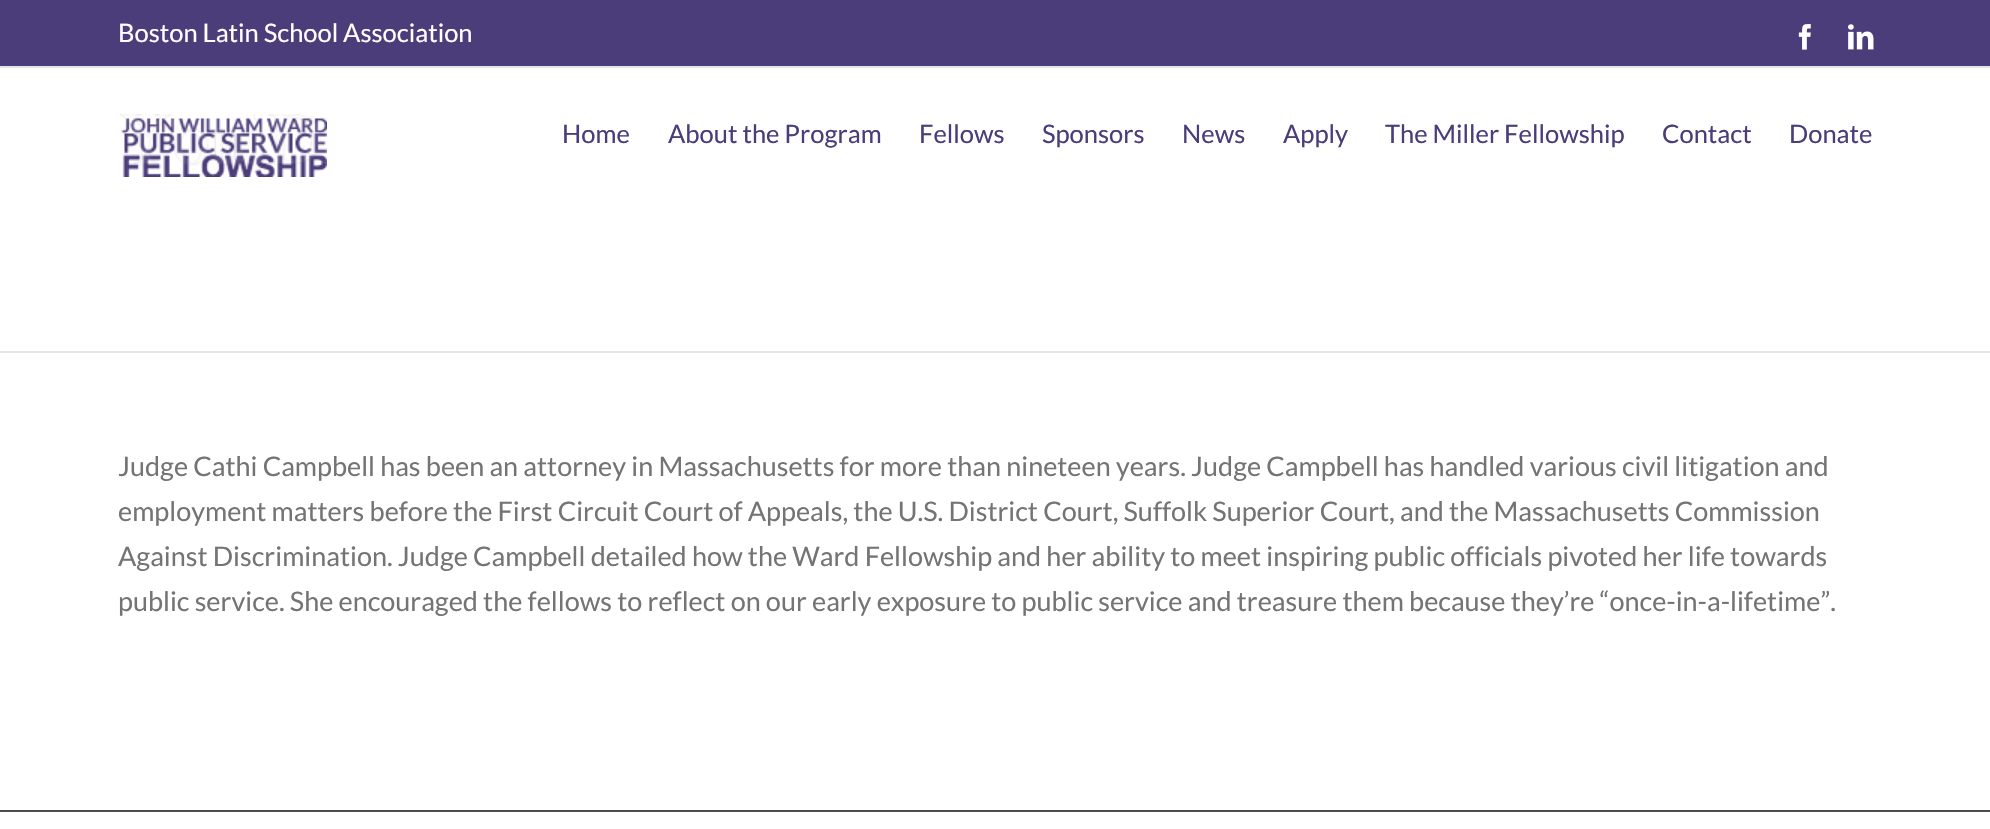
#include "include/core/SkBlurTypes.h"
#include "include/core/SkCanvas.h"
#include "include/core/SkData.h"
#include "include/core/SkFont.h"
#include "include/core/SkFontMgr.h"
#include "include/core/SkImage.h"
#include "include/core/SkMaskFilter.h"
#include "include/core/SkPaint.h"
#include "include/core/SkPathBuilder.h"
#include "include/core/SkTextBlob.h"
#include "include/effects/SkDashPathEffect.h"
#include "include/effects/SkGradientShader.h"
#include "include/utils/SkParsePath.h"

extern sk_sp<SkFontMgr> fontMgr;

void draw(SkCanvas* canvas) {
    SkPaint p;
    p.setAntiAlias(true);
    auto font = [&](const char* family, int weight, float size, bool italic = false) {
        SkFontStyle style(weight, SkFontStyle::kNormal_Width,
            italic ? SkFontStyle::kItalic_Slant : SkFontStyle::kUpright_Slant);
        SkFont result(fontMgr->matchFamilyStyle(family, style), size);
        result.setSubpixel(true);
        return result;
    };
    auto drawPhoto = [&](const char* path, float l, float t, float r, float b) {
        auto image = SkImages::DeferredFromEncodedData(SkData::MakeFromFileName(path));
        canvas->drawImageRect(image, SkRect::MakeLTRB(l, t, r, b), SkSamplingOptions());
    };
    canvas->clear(0xFFFFFFFF);
    p.setColor(0xFF4B3C7A);
    canvas->drawRect(SkRect::MakeLTRB(0, 0, 1990, 66), p);
    p.setColor(0xFFE5E5E5);
    canvas->drawRect(SkRect::MakeLTRB(0, 66, 1990, 68), p);
    auto font1 = font("Lato", 400, 25.5f);
    p.setColor(0xFFFFFFFF);
    canvas->drawString("Boston Latin School Association", 118, 42, font1, p);
    drawPhoto("media/1.png", 1798, 24, 1811, 50);
    drawPhoto("media/2.png", 1848, 24, 1874, 50);
    p.setColor(0xFFE5E5E5);
    canvas->drawRect(SkRect::MakeLTRB(0, 351, 1990, 353), p);
    drawPhoto("media/3.png", 119, 114, 327, 177);
    p.setColor(0xFF4B3C7A);
    {
        const struct { const char* s; float x, y; } items[] = {
            {"Home", 562, 143},
            {"About the Program", 668, 143},
            {"Fellows", 919, 143},
            {"Sponsors", 1042, 143},
            {"News", 1182, 143},
            {"Apply", 1283, 143},
            {"The Miller Fellowship", 1385, 143},
            {"Contact", 1662, 143},
            {"Donate", 1789, 143},
        };
        for (auto [s, x, y] : items) {
            canvas->drawString(s, x, y, font1, p);
        }
    }
    auto font2 = font("Lato", 400, 27);
    p.setColor(0xFF747474);
    {
        const struct { const char* s; float x, y; } items[] = {
            {"Judge Cathi Campbell has been an attorney in Massachusetts for more than nineteen years. Judge Campbell has handled various civil litigation and", 118, 476},
            {"employment matters before the First Circuit Court of Appeals, the U.S. District Court, Suffolk Superior Court, and the Massachusetts Commission", 118, 521},
            {"Against Discrimination. Judge Campbell detailed how the Ward Fellowship and her ability to meet inspiring public officials pivoted her life towards", 118, 566},
            {"public service. She encouraged the fellows to reflect on our early exposure to public service and treasure them because they’re “once-in-a-lifetime”.", 118, 611},
        };
        for (auto [s, x, y] : items) {
            canvas->drawString(s, x, y, font2, p);
        }
    }
    p.setColor(0xFF4B4C4D);
    canvas->drawRect(SkRect::MakeLTRB(0, 810, 1990, 812), p);
}
